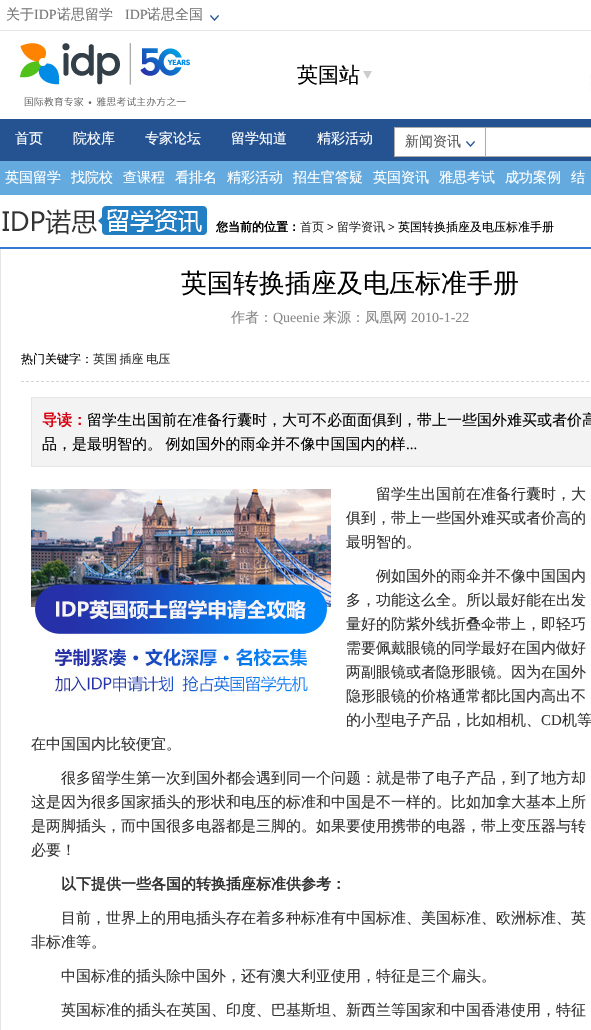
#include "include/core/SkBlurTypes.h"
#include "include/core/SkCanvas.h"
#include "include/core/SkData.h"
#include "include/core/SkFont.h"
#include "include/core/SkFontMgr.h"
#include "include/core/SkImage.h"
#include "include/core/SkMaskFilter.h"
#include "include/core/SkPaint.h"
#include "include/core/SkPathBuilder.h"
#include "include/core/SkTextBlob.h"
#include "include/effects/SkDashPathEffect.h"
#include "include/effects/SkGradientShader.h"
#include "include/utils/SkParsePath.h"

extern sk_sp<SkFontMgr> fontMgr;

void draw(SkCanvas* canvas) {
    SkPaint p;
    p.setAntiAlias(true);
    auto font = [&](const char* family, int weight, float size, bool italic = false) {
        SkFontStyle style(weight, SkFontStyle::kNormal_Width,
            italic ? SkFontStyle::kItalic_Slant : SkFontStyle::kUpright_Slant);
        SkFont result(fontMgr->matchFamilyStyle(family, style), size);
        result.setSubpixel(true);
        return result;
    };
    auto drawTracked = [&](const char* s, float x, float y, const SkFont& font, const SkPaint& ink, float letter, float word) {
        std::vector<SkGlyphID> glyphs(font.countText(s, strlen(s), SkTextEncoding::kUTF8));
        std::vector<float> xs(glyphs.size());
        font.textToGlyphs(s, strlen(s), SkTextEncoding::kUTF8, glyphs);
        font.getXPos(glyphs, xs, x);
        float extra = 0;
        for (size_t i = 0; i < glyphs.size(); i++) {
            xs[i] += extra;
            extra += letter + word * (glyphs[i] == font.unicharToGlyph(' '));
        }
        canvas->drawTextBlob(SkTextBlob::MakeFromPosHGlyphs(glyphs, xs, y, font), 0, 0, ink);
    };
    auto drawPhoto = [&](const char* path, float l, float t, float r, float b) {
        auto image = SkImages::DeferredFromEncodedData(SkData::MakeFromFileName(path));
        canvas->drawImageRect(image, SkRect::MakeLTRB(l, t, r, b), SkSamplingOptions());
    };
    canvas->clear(0xFFFFFFFF);
    p.setColor(0xFFE7E7E7);
    canvas->drawRect(SkRect::MakeLTRB(0, 30, 591, 31), p);
    auto font1 = font("WenQuanYi Zen Hei", 500, 14);
    p.setColor(0xFF777777);
    canvas->drawString("关于", 6, 19, font1, p);
    auto font2 = font("Liberation Serif", 400, 14);
    canvas->drawString("IDP", 34, 19, font2, p);
    canvas->drawString("诺思留学", 57, 19, font1, p);
    canvas->drawString("IDP", 125, 19, font2, p);
    canvas->drawString("诺思全国", 147, 19, font1, p);
    drawPhoto("media/1.png", 210, 15, 219, 21);
    drawPhoto("media/2.png", 16, 43, 190, 107);
    drawPhoto("media/3.png", 363, 71, 372, 79);
    auto font3 = font("WenQuanYi Zen Hei", 500, 21);
    p.setColor(0xFF000000);
    canvas->drawString("英国站", 297, 82, font3, p);
    drawPhoto("media/4.png", 590, 74, 591, 90);
    p.setColor(0xFF255391);
    canvas->drawRect(SkRect::MakeLTRB(0, 119, 591, 161), p);
    p.setColor(0xFFFFFFFF);
    {
        const struct { const char* s; float x, y; } items[] = {
            {"首页", 15, 143},
            {"院校库", 73, 143},
            {"专家论坛", 145, 143},
            {"留学知道", 231, 143},
            {"精彩活动", 317, 143},
        };
        for (auto [s, x, y] : items) {
            canvas->drawString(s, x, y, font1, p);
        }
    }
    canvas->drawRect(SkRect::MakeLTRB(394.5f, 127.5f, 485.5f, 156.5f), p);
    p.setStyle(SkPaint::kStroke_Style);
    p.setStrokeWidth(1);
    p.setColor(0xFFABABAB);
    canvas->drawRect(SkRect::MakeLTRB(394.5f, 127.5f, 485.5f, 156.5f), p);
    p.setStyle(SkPaint::kFill_Style);
    p.setColor(0xFF595757);
    canvas->drawString("新闻资讯", 405, 146, font1, p);
    drawPhoto("media/1.png", 466, 141, 475, 147);
    {
        const struct { float l, t, r, b; SkColor color; } items[] = {
            {486, 128, 591, 156, 0xFFFFFFFF},
            {486, 127, 591, 128, 0xFFABABAB},
            {486, 156, 591, 157, 0xFFABABAB},
            {0, 161, 591, 195, 0xFF64AADE},
        };
        for (auto [l, t, r, b, color] : items) {
            p.setColor(color);
            canvas->drawRect(SkRect::MakeLTRB(l, t, r, b), p);
        }
    }
    p.setColor(0xFFFFFFFF);
    {
        const struct { const char* s; float x, y; } items[] = {
            {"英国留学", 5, 182},
            {"找院校", 71, 182},
            {"查课程", 123, 182},
            {"看排名", 175, 182},
            {"精彩活动", 227, 182},
            {"招生官答疑", 293, 182},
            {"英国资讯", 373, 182},
            {"雅思考试", 439, 182},
            {"成功案例", 505, 182},
            {"结", 571, 182},
        };
        for (auto [s, x, y] : items) {
            canvas->drawString(s, x, y, font1, p);
        }
    }
    drawPhoto("media/5.png", 2, 206, 207, 235);
    auto font4 = font("WenQuanYi Zen Hei", 700, 12);
    p.setColor(0xFF000000);
    canvas->drawString("您当前的位置：", 216, 231, font4, p);
    auto font5 = font("WenQuanYi Zen Hei", 500, 12);
    p.setColor(0xFF333333);
    canvas->drawString("首页", 300, 231, font5, p);
    auto font6 = font("Liberation Serif", 400, 12);
    p.setColor(0xFF000000);
    canvas->drawString(">", 327, 231, font6, p);
    p.setColor(0xFF333333);
    canvas->drawString("留学资讯", 337, 231, font5, p);
    p.setColor(0xFF000000);
    canvas->drawString(">", 388, 231, font6, p);
    canvas->drawString("英国转换插座及电压标准手册", 398, 231, font5, p);
    p.setColor(0xFF3579D3);
    canvas->drawRect(SkRect::MakeLTRB(0, 247, 591, 249), p);
    p.setColor(0xFFE5E5E5);
    canvas->drawRect(SkRect::MakeLTRB(0, 249, 1, 1030), p);
    p.setStyle(SkPaint::kStroke_Style);
    p.setColor(0xFFD4D4D4);
    p.setPathEffect(SkDashPathEffect::Make({{3, 2}}, 0));
    canvas->drawPath(SkPathBuilder().moveTo(21, 381.5f).lineTo(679, 381.5f).detach(), p);
    p.setPathEffect(nullptr);
    auto font7 = font("WenQuanYi Zen Hei", 500, 26);
    p.setStyle(SkPaint::kFill_Style);
    p.setColor(0xFF000000);
    canvas->drawString("英国转换插座及电压标准手册", 181, 292, font7, p);
    p.setColor(0xFF888888);
    canvas->drawString("作者：", 231, 322, font1, p);
    canvas->drawString("Queenie", 273, 322, font2, p);
    canvas->drawString("来源：凤凰网", 323, 322, font1, p);
    canvas->drawString("2010-1-22", 411, 322, font2, p);
    p.setColor(0xFF000000);
    canvas->drawString("热门关键字：", 21, 363, font5, p);
    p.setColor(0xFF333333);
    drawTracked("英国 插座 电压", 93, 363, font5, p, 0, -1);
    p.setColor(0xFFF3F3F3);
    canvas->drawRect(SkRect::MakeLTRB(31.5f, 397.5f, 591.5f, 466.5f), p);
    p.setStyle(SkPaint::kStroke_Style);
    p.setColor(0xFFE6E6E6);
    canvas->drawRect(SkRect::MakeLTRB(31.5f, 397.5f, 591.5f, 466.5f), p);
    auto font8 = font("WenQuanYi Zen Hei", 700, 15);
    p.setStyle(SkPaint::kFill_Style);
    p.setColor(0xFFD6000F);
    canvas->drawString("导读：", 42, 425, font8, p);
    auto font9 = font("WenQuanYi Zen Hei", 500, 15);
    p.setColor(0xFF000000);
    canvas->drawString("留学生出国前在准备行囊时，大可不必面面俱到，带上一些国外难买或者价高", 87, 425, font9, p);
    drawTracked("品，是最明智的。 例如国外的雨伞并不像中国国内的样", 42, 449, font9, p, 0, -1);
    auto font10 = font("Liberation Serif", 400, 15);
    canvas->drawString("...", 406, 449, font10, p);
    drawPhoto("media/6.png", 31, 489, 331, 697);
    p.setColor(0xFF333333);
    {
        const struct { const char* s; float x, y; } items[] = {
            {"留学生出国前在准备行囊时，大", 376, 499},
            {"俱到，带上一些国外难买或者价高的", 346, 523},
            {"最明智的。", 346, 547},
            {"例如国外的雨伞并不像中国国内", 376, 581},
            {"多，功能这么全。所以最好能在出发", 346, 605},
            {"量好的防紫外线折叠伞带上，即轻巧", 346, 629},
            {"需要佩戴眼镜的同学最好在国内做好", 346, 653},
            {"两副眼镜或者隐形眼镜。因为在国外", 346, 677},
            {"隐形眼镜的价格通常都比国内高出不", 346, 701},
            {"的小型电子产品，比如相机、", 346, 725},
        };
        for (auto [s, x, y] : items) {
            canvas->drawString(s, x, y, font9, p);
        }
    }
    canvas->drawString("CD", 541, 725, font10, p);
    {
        const struct { const char* s; float x, y; } items[] = {
            {"机等", 562, 725},
            {"在中国国内比较便宜。", 31, 749},
            {"很多留学生第一次到国外都会遇到同一个问题：就是带了电子产品，到了地方却", 61, 783},
            {"这是因为很多国家插头的形状和电压的标准和中国是不一样的。比如加拿大基本上所", 31, 807},
            {"是两脚插头，而中国很多电器都是三脚的。如果要使用携带的电器，带上变压器与转", 31, 831},
            {"必要！", 31, 855},
        };
        for (auto [s, x, y] : items) {
            canvas->drawString(s, x, y, font9, p);
        }
    }
    canvas->drawString("以下提供一些各国的转换插座标准供参考：", 61, 889, font8, p);
    {
        const struct { const char* s; float x, y; } items[] = {
            {"目前，世界上的用电插头存在着多种标准有中国标准、美国标准、欧洲标准、英", 61, 923},
            {"非标准等。", 31, 947},
            {"中国标准的插头除中国外，还有澳大利亚使用，特征是三个扁头。", 61, 981},
            {"英国标准的插头在英国、印度、巴基斯坦、新西兰等国家和中国香港使用，特征", 61, 1015},
        };
        for (auto [s, x, y] : items) {
            canvas->drawString(s, x, y, font9, p);
        }
    }
}
